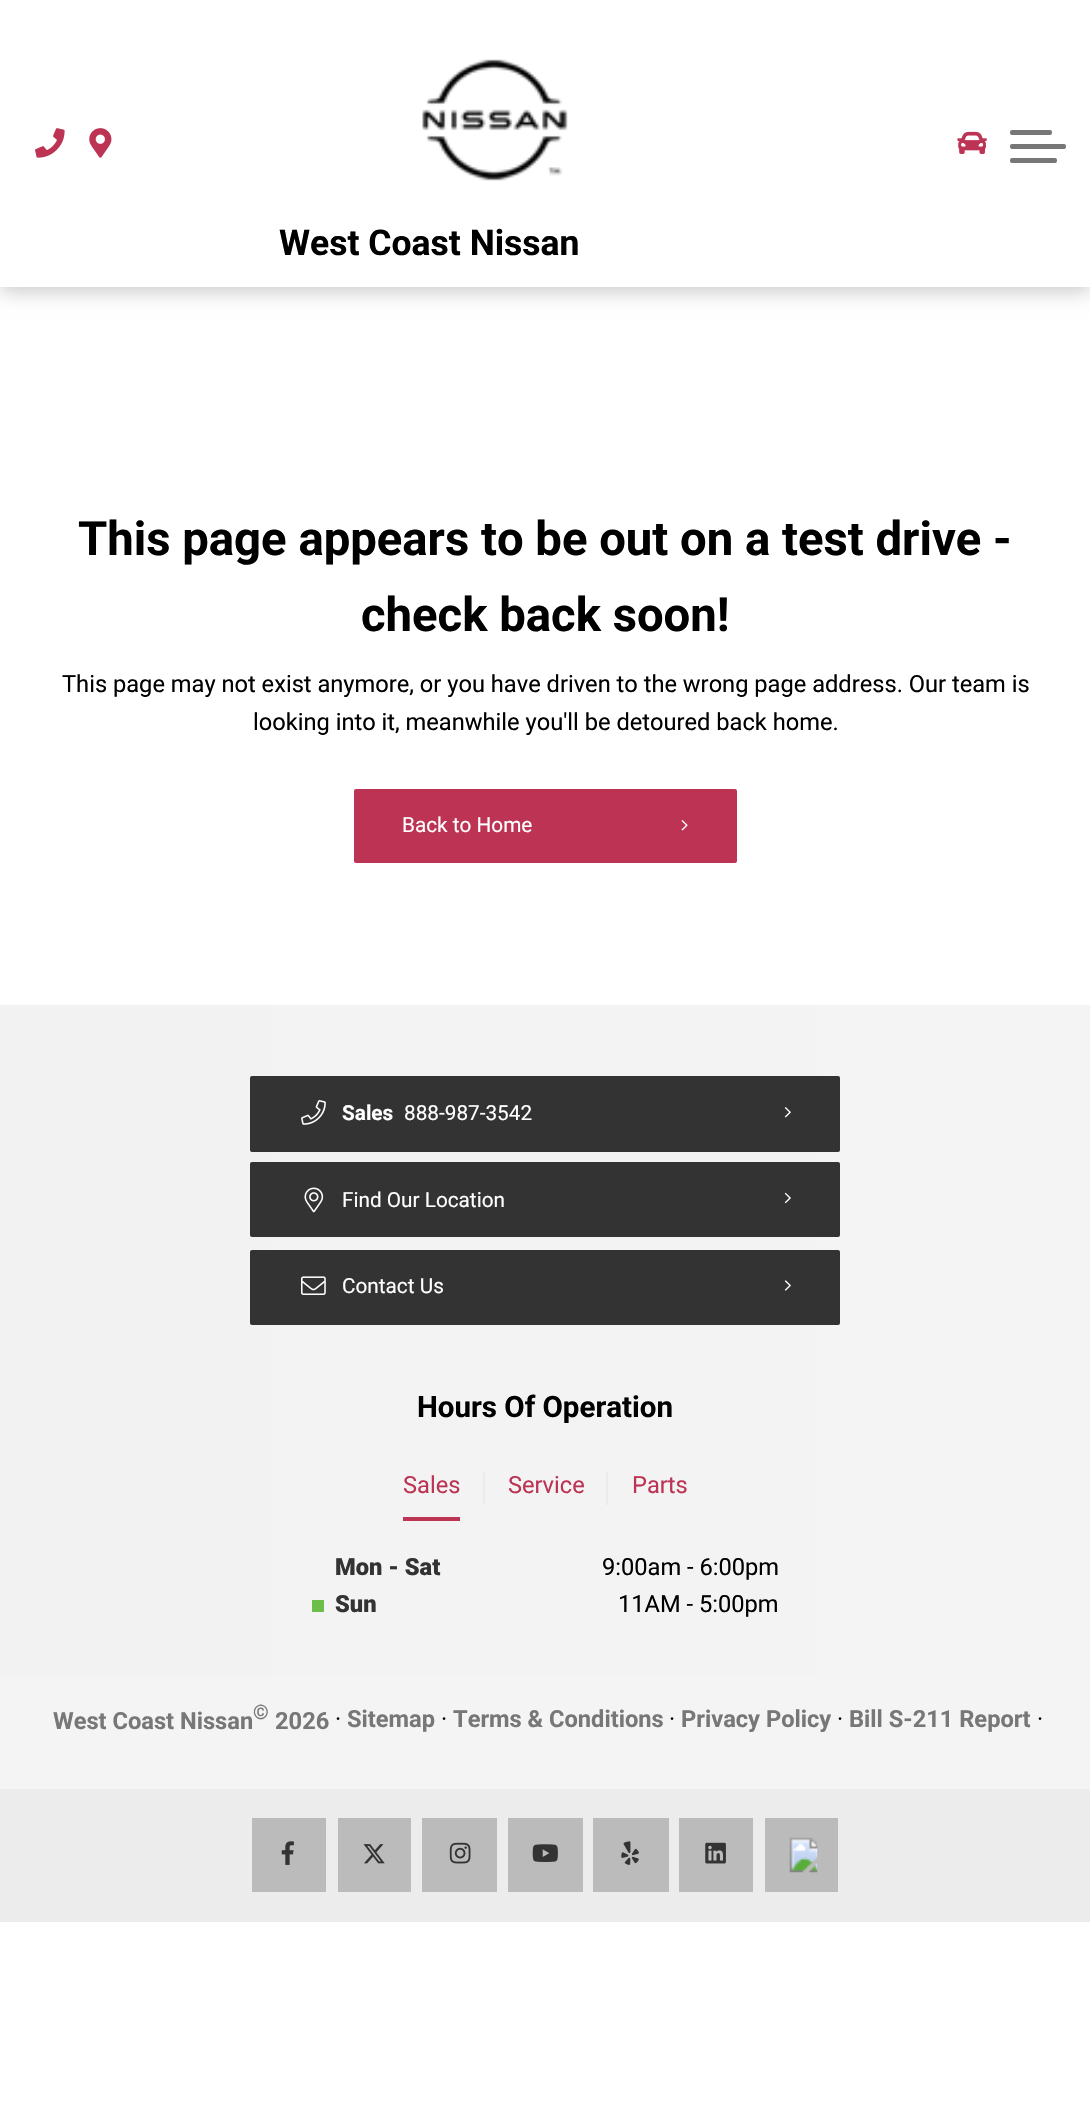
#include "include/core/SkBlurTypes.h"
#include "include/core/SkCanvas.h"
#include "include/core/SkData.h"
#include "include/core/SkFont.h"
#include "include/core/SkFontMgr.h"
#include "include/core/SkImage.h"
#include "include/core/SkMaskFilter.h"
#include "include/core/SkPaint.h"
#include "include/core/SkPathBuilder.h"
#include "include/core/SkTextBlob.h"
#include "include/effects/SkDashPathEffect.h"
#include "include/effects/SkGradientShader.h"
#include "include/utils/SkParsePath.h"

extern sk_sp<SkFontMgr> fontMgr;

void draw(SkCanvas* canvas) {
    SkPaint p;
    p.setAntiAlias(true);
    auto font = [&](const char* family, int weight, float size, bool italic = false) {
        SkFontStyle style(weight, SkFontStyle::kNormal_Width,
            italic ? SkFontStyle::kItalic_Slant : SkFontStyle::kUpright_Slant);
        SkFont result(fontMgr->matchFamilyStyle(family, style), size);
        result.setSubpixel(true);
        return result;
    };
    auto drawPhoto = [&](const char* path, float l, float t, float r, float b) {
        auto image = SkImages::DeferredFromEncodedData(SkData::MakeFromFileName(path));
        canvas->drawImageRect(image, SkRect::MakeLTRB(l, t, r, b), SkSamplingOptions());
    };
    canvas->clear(0xFFFFFFFF);
    p.setColor(0x33000000);
    p.setMaskFilter(SkMaskFilter::MakeBlur(kNormal_SkBlurStyle, 9));
    canvas->drawRect(SkRect::MakeLTRB(0, 5, 1090, 292), p);
    p.setMaskFilter(nullptr);
    p.setColor(0xFFFFFFFF);
    canvas->drawRect(SkRect::MakeLTRB(0, 0, 1090, 287), p);
    drawPhoto("media/1.png", 35, 128, 65, 158);
    drawPhoto("media/2.png", 89, 128, 112, 158);
    drawPhoto("media/3.png", 957, 131, 987, 154);
    p.setColor(0xFF777777);
    canvas->drawRoundRect(SkRect::MakeLTRB(1010, 144, 1066, 149), 2, 2, p);
    canvas->drawRoundRect(SkRect::MakeLTRB(1010, 130, 1052, 135), 2, 2, p);
    canvas->drawRoundRect(SkRect::MakeLTRB(1010, 158, 1057, 163), 2, 2, p);
    drawPhoto("media/4.png", 422, 59, 568, 181);
    auto font1 = font("Roboto", 700, 35.5f);
    p.setColor(0xFF000000);
    canvas->drawString("West Coast Nissan", 279, 255, font1, p);
    auto font2 = font("Roboto", 700, 47.25f);
    canvas->drawString("This page appears to be out on a test drive -", 78, 555, font2, p);
    canvas->drawString("check back soon!", 361, 631, font2, p);
    auto font3 = font("Roboto", 400, 23.65f);
    canvas->drawString("This page may not exist anymore, or you have driven to the wrong page address. Our team is", 62, 692, font3, p);
    canvas->drawString("looking into it, meanwhile you'll be detoured back home.", 253, 730, font3, p);
    p.setColor(0xFFBC3354);
    canvas->drawRoundRect(SkRect::MakeLTRB(354, 789, 737, 863), 2, 2, p);
    auto font4 = font("Roboto", 400, 20.75f);
    p.setColor(0xFFFFFFFF);
    canvas->drawString("Back to Home", 402, 832, font4, p);
    drawPhoto("media/5.png", 681, 820, 688, 831);
    {
        const SkColor colors[] = {0xFFF2F2F2, 0xFFF4F4F4};
        const float stops[] = {0, 1};
        const SkPoint ends[] = {{0, 1340}, {1090, 1340}};
        p.setShader(SkGradientShader::MakeLinear(ends, colors, stops, 2, SkTileMode::kClamp));
        p.setAlpha(255);
    }
    canvas->drawRect(SkRect::MakeLTRB(0, 1005, 1090, 1675), p);
    p.setShader(nullptr);
    p.setColor(0xFF333333);
    canvas->drawRoundRect(SkRect::MakeLTRB(250, 1076, 840, 1152), 2, 2, p);
    drawPhoto("media/6.png", 301, 1100, 326, 1125);
    auto font5 = font("Roboto", 700, 20.75f);
    p.setColor(0xFFFFFFFF);
    canvas->drawString("Sales", 342, 1120, font5, p);
    canvas->drawString("888-987-3542", 404, 1120, font4, p);
    drawPhoto("media/7.png", 784, 1107, 791, 1118);
    p.setColor(0xFF333333);
    canvas->drawRoundRect(SkRect::MakeLTRB(250, 1162, 840, 1237), 2, 2, p);
    drawPhoto("media/8.png", 304, 1187, 324, 1213);
    p.setColor(0xFFFFFFFF);
    canvas->drawString("Find Our Location", 342, 1207, font4, p);
    drawPhoto("media/9.png", 784, 1192, 791, 1204);
    p.setColor(0xFF333333);
    canvas->drawRoundRect(SkRect::MakeLTRB(250, 1250, 840, 1325), 2, 2, p);
    drawPhoto("media/10.png", 301, 1276, 326, 1295);
    p.setColor(0xFFFFFFFF);
    canvas->drawString("Contact Us", 342, 1293, font4, p);
    drawPhoto("media/11.png", 784, 1280, 791, 1291);
    auto font6 = font("Roboto", 700, 29.5f);
    p.setColor(0xFF000000);
    canvas->drawString("Hours Of Operation", 417, 1417, font6, p);
    p.setColor(0xFFBC3354);
    canvas->drawRect(SkRect::MakeLTRB(403, 1517, 460, 1521), p);
    canvas->drawString("Sales", 403, 1493, font3, p);
    p.setColor(0xFFECECEC);
    canvas->drawRect(SkRect::MakeLTRB(483, 1472, 485, 1505), p);
    p.setColor(0xFFBC3354);
    canvas->drawString("Service", 508, 1493, font3, p);
    p.setColor(0xFFECECEC);
    canvas->drawRect(SkRect::MakeLTRB(606, 1472, 608, 1505), p);
    p.setColor(0xFFBC3354);
    canvas->drawString("Parts", 632, 1493, font3, p);
    auto font7 = font("Roboto", 900, 23.65f);
    p.setColor(0xFF333333);
    canvas->drawString("Mon - Sat", 335, 1575, font7, p);
    p.setColor(0xFF000000);
    canvas->drawString("9:00am - 6:00pm", 602, 1575, font3, p);
    p.setColor(0xFF6BBF49);
    canvas->drawRect(SkRect::MakeLTRB(312, 1600, 324, 1612), p);
    p.setColor(0xFF333333);
    canvas->drawString("Sun", 335, 1612, font7, p);
    p.setColor(0xFF000000);
    canvas->drawString("11AM - 5:00pm", 618, 1612, font3, p);
    p.setColor(0xFFF4F4F4);
    canvas->drawRect(SkRect::MakeLTRB(0, 1675, 1090, 1789), p);
    auto font8 = font("Roboto", 700, 23.65f);
    p.setColor(0xFF777777);
    canvas->drawString("West Coast Nissan", 53, 1729, font8, p);
    auto font9 = font("Roboto", 700, 20);
    canvas->drawString("©", 253, 1719, font9, p);
    canvas->drawString("2026", 275, 1729, font8, p);
    p.setColor(0xFF000000);
    canvas->drawString("·", 335, 1727, font3, p);
    p.setColor(0xFF777777);
    canvas->drawString("Sitemap", 347, 1727, font8, p);
    p.setColor(0xFF000000);
    canvas->drawString("·", 441, 1727, font3, p);
    p.setColor(0xFF777777);
    canvas->drawString("Terms & Conditions", 453, 1727, font8, p);
    p.setColor(0xFF000000);
    canvas->drawString("·", 669, 1727, font3, p);
    p.setColor(0xFF777777);
    canvas->drawString("Privacy Policy", 681, 1727, font8, p);
    p.setColor(0xFF000000);
    canvas->drawString("·", 837, 1727, font3, p);
    p.setColor(0xFF777777);
    canvas->drawString("Bill S-211 Report", 849, 1727, font8, p);
    p.setColor(0xFF000000);
    canvas->drawString("·", 1037, 1727, font3, p);
    p.setColor(0xFFECECEC);
    canvas->drawRect(SkRect::MakeLTRB(0, 1789, 1090, 1922), p);
    p.setColor(0xFFBBBBBB);
    canvas->drawRect(SkRect::MakeLTRB(252, 1818, 326, 1892), p);
    drawPhoto("media/12.png", 281, 1841, 294, 1865);
    canvas->drawRect(SkRect::MakeLTRB(338, 1818, 411, 1892), p);
    drawPhoto("media/13.png", 363, 1844, 385, 1864);
    canvas->drawRect(SkRect::MakeLTRB(422, 1818, 497, 1892), p);
    drawPhoto("media/14.png", 449, 1842, 471, 1864);
    canvas->drawRect(SkRect::MakeLTRB(508, 1818, 583, 1892), p);
    drawPhoto("media/15.png", 532, 1844, 558, 1862);
    canvas->drawRect(SkRect::MakeLTRB(593, 1818, 669, 1892), p);
    drawPhoto("media/16.png", 621, 1841, 639, 1865);
    canvas->drawRect(SkRect::MakeLTRB(679, 1818, 753, 1892), p);
    drawPhoto("media/17.png", 705, 1842, 726, 1864);
    canvas->drawRect(SkRect::MakeLTRB(765, 1818, 838, 1892), p);
    drawPhoto("media/18.png", 789, 1837, 818, 1873);
}
